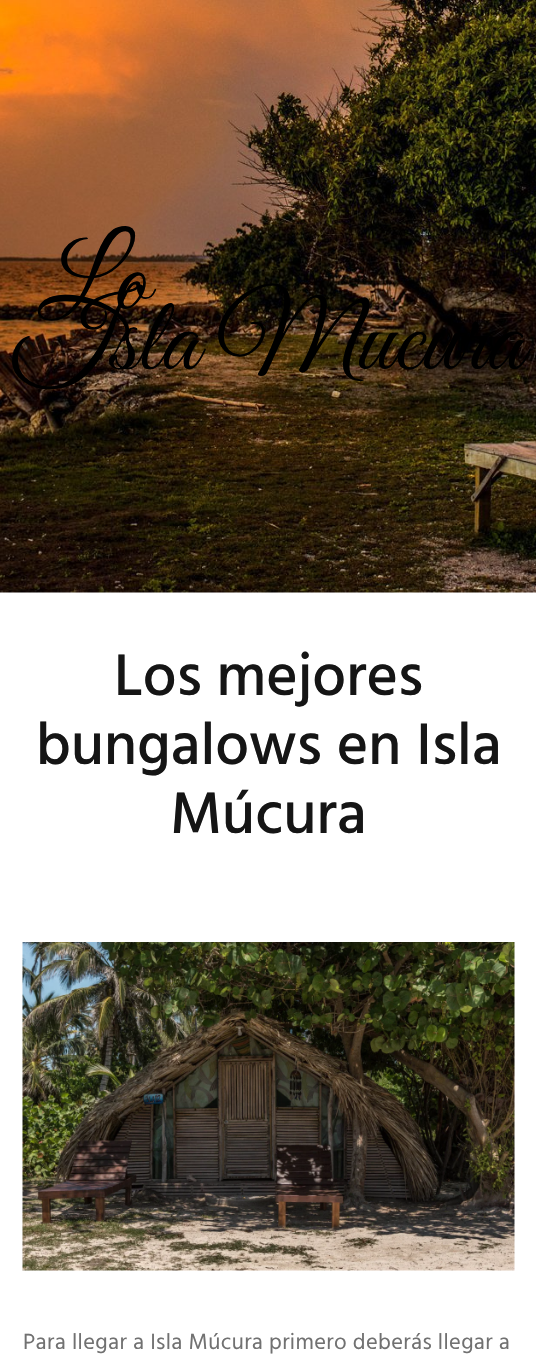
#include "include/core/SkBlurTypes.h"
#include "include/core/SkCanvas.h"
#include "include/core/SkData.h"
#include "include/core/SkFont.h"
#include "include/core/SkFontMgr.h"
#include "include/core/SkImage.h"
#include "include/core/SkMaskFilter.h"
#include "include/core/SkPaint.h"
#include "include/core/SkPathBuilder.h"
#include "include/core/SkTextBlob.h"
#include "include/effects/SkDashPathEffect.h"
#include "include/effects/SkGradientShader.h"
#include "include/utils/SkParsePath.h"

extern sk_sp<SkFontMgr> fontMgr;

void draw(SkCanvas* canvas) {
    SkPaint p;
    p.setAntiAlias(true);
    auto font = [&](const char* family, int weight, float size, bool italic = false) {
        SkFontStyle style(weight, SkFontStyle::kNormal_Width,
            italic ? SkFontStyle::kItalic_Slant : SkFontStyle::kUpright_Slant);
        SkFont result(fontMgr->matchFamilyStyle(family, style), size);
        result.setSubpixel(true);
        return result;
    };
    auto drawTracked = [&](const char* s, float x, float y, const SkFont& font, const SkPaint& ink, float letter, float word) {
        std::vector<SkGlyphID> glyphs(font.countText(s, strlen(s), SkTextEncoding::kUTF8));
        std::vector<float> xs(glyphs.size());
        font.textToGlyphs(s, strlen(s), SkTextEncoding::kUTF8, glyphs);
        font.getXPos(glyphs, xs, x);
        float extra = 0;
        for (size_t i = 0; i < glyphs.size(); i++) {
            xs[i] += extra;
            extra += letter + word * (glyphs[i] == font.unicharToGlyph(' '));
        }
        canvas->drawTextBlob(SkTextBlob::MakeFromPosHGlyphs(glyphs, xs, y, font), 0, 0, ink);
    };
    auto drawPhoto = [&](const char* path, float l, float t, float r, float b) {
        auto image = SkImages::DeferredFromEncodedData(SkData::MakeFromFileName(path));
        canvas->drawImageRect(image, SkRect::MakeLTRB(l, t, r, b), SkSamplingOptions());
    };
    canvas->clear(0xFFFFFFFF);
    drawPhoto("media/1.png", 0, 0, 536, 593);
    auto font1 = font("Great Vibes", 400, 105);
    p.setColor(0xFF000000);
    drawTracked("Lo", 38, 309, font1, p, 0, 2);
    canvas->drawString("Isla Mucura", 14, 369, font1, p);
    auto font2 = font("Hind", 500, 60);
    p.setColor(0xFF151515);
    {
        const struct { const char* s; float x, y; } items[] = {
            {"Los mejores", 114, 695},
            {"bungalows en Isla", 36, 764},
            {"Múcura", 170, 833},
        };
        for (auto [s, x, y] : items) {
            canvas->drawString(s, x, y, font2, p);
        }
    }
    drawPhoto("media/2.png", 22, 942, 515, 1271);
    auto font3 = font("Hind", 400, 22.5f);
    p.setColor(0xFF717171);
    drawTracked("Para llegar a Isla Múcura primero deberás llegar a", 23, 1349, font3, p, 0.35f, 0);
}
